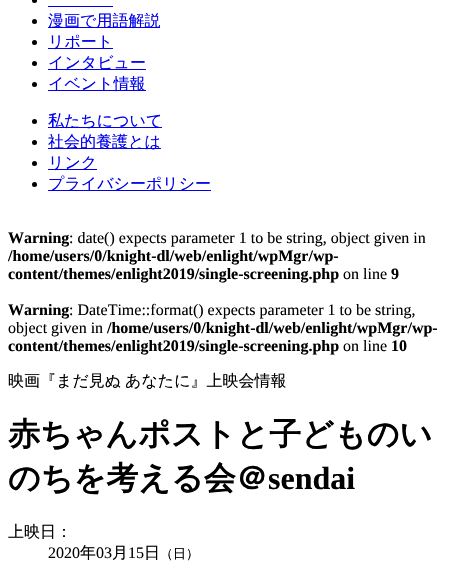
#include "include/core/SkBlurTypes.h"
#include "include/core/SkCanvas.h"
#include "include/core/SkData.h"
#include "include/core/SkFont.h"
#include "include/core/SkFontMgr.h"
#include "include/core/SkImage.h"
#include "include/core/SkMaskFilter.h"
#include "include/core/SkPaint.h"
#include "include/core/SkPathBuilder.h"
#include "include/core/SkTextBlob.h"
#include "include/effects/SkDashPathEffect.h"
#include "include/effects/SkGradientShader.h"
#include "include/utils/SkParsePath.h"

extern sk_sp<SkFontMgr> fontMgr;

void draw(SkCanvas* canvas) {
    SkPaint p;
    p.setAntiAlias(true);
    auto font = [&](const char* family, int weight, float size, bool italic = false) {
        SkFontStyle style(weight, SkFontStyle::kNormal_Width,
            italic ? SkFontStyle::kItalic_Slant : SkFontStyle::kUpright_Slant);
        SkFont result(fontMgr->matchFamilyStyle(family, style), size);
        result.setSubpixel(true);
        return result;
    };
    canvas->clear(0xFFFFFFFF);
    p.setColor(0xFF000000);
    canvas->drawCircle(34.5f, 0.5f, 2.5f, p);
    p.setColor(0xFF0000EE);
    canvas->drawRect(SkRect::MakeLTRB(48, 6, 113, 7), p);
    p.setColor(0xFF000000);
    canvas->drawCircle(34.5f, 21.5f, 2.5f, p);
    p.setColor(0xFF0000EE);
    canvas->drawRect(SkRect::MakeLTRB(48, 27, 160, 28), p);
    auto font1 = font("WenQuanYi Zen Hei", 500, 16);
    canvas->drawString("漫画で用語解説", 48, 26, font1, p);
    p.setColor(0xFF000000);
    canvas->drawCircle(34.5f, 42.5f, 2.5f, p);
    p.setColor(0xFF0000EE);
    canvas->drawRect(SkRect::MakeLTRB(48, 48, 113, 49), p);
    canvas->drawString("リポート", 48, 47, font1, p);
    p.setColor(0xFF000000);
    canvas->drawCircle(34.5f, 63.5f, 2.5f, p);
    p.setColor(0xFF0000EE);
    canvas->drawRect(SkRect::MakeLTRB(48, 69, 146, 70), p);
    canvas->drawString("インタビュー", 48, 68, font1, p);
    p.setColor(0xFF000000);
    canvas->drawCircle(34.5f, 84.5f, 2.5f, p);
    p.setColor(0xFF0000EE);
    canvas->drawRect(SkRect::MakeLTRB(48, 90, 146, 91), p);
    canvas->drawString("イベント情報", 48, 89, font1, p);
    p.setColor(0xFF000000);
    canvas->drawCircle(34.5f, 121.5f, 2.5f, p);
    p.setColor(0xFF0000EE);
    canvas->drawRect(SkRect::MakeLTRB(48, 127, 162, 128), p);
    canvas->drawString("私たちについて", 48, 126, font1, p);
    p.setColor(0xFF000000);
    canvas->drawCircle(34.5f, 142.5f, 2.5f, p);
    p.setColor(0xFF0000EE);
    canvas->drawRect(SkRect::MakeLTRB(48, 148, 161, 149), p);
    canvas->drawString("社会的養護とは", 48, 147, font1, p);
    p.setColor(0xFF000000);
    canvas->drawCircle(34.5f, 163.5f, 2.5f, p);
    p.setColor(0xFF0000EE);
    canvas->drawRect(SkRect::MakeLTRB(48, 169, 97, 170), p);
    canvas->drawString("リンク", 48, 168, font1, p);
    p.setColor(0xFF000000);
    canvas->drawCircle(34.5f, 184.5f, 2.5f, p);
    p.setColor(0xFF0000EE);
    canvas->drawRect(SkRect::MakeLTRB(48, 190, 211, 191), p);
    canvas->drawString("プライバシーポリシー", 48, 189, font1, p);
    auto font2 = font("Liberation Serif", 700, 16);
    p.setColor(0xFF000000);
    canvas->drawString("Warning", 8, 243, font2, p);
    auto font3 = font("Liberation Serif", 400, 16);
    canvas->drawString(": date() expects parameter 1 to be string, object given in", 69, 243, font3, p);
    canvas->drawString("/home/users/0/knight-dl/web/enlight/wpMgr/wp-", 8, 261, font2, p);
    canvas->drawString("content/themes/enlight2019/single-screening.php", 8, 279, font2, p);
    canvas->drawString("on line", 343, 279, font3, p);
    canvas->drawString("9", 391, 279, font2, p);
    canvas->drawString("Warning", 8, 315, font2, p);
    canvas->drawString(": DateTime::format() expects parameter 1 to be string,", 69, 315, font3, p);
    canvas->drawString("object given in", 8, 333, font3, p);
    canvas->drawString("/home/users/0/knight-dl/web/enlight/wpMgr/wp-", 107, 333, font2, p);
    canvas->drawString("content/themes/enlight2019/single-screening.php", 8, 351, font2, p);
    canvas->drawString("on line", 343, 351, font3, p);
    canvas->drawString("10", 391, 351, font2, p);
    canvas->drawString("映画『まだ見ぬ", 8, 386, font1, p);
    canvas->drawString("あなたに』上映会情報", 125, 386, font1, p);
    auto font4 = font("WenQuanYi Zen Hei", 700, 32);
    canvas->drawString("赤ちゃんポストと子どものい", 8, 445, font4, p);
    canvas->drawString("のちを考える会＠", 8, 489, font4, p);
    auto font5 = font("Liberation Serif", 700, 32);
    canvas->drawString("sendai", 268, 489, font5, p);
    canvas->drawString("上映日：", 8, 537, font1, p);
    canvas->drawString("2020", 48, 558, font3, p);
    canvas->drawString("年", 80, 558, font1, p);
    canvas->drawString("03", 96, 558, font3, p);
    canvas->drawString("月", 112, 558, font1, p);
    canvas->drawString("15", 128, 558, font3, p);
    canvas->drawString("日", 144, 558, font1, p);
    auto font6 = font("WenQuanYi Zen Hei", 500, 13);
    canvas->drawString("（日）", 160, 558, font6, p);
}
